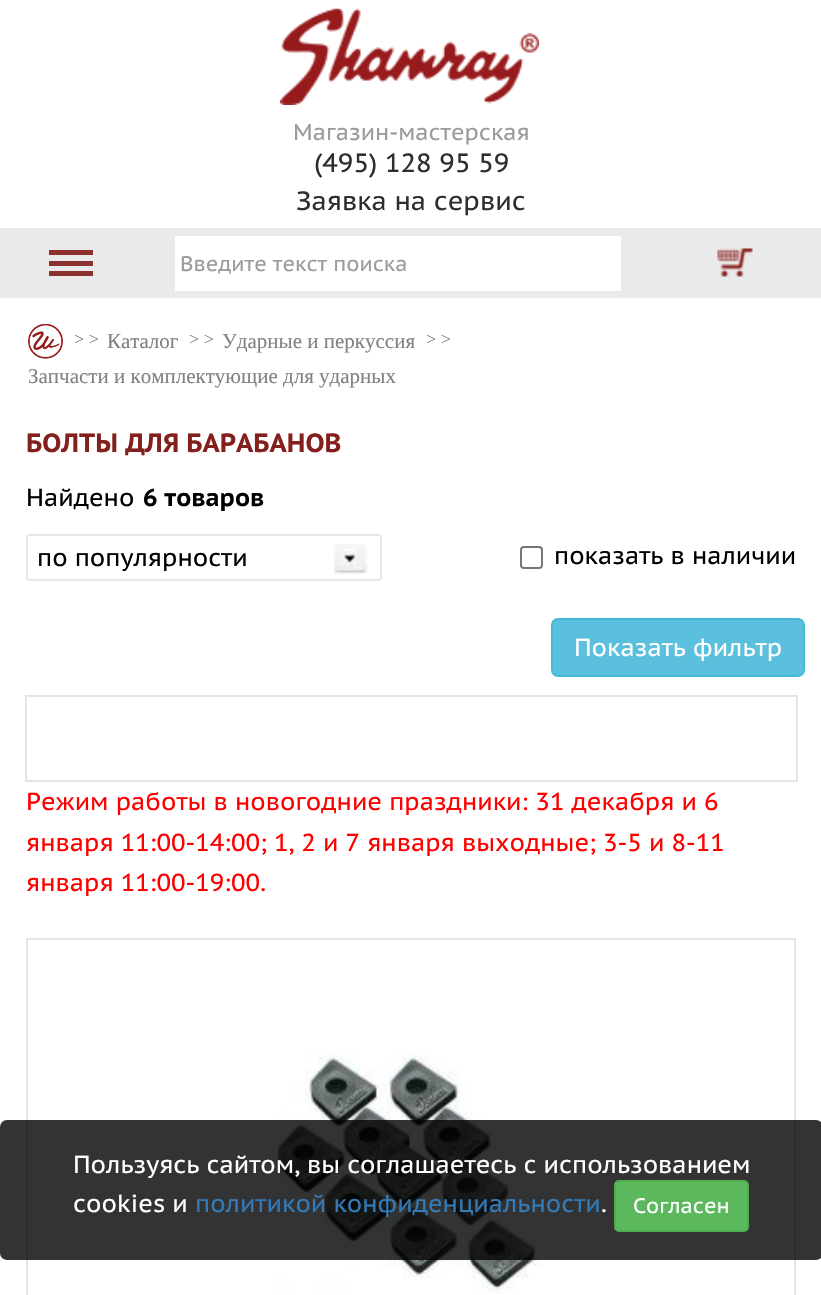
#include "include/core/SkBlurTypes.h"
#include "include/core/SkCanvas.h"
#include "include/core/SkData.h"
#include "include/core/SkFont.h"
#include "include/core/SkFontMgr.h"
#include "include/core/SkImage.h"
#include "include/core/SkMaskFilter.h"
#include "include/core/SkPaint.h"
#include "include/core/SkPathBuilder.h"
#include "include/core/SkTextBlob.h"
#include "include/effects/SkDashPathEffect.h"
#include "include/effects/SkGradientShader.h"
#include "include/utils/SkParsePath.h"

extern sk_sp<SkFontMgr> fontMgr;

void draw(SkCanvas* canvas) {
    SkPaint p;
    p.setAntiAlias(true);
    auto font = [&](const char* family, int weight, float size, bool italic = false) {
        SkFontStyle style(weight, SkFontStyle::kNormal_Width,
            italic ? SkFontStyle::kItalic_Slant : SkFontStyle::kUpright_Slant);
        SkFont result(fontMgr->matchFamilyStyle(family, style), size);
        result.setSubpixel(true);
        return result;
    };
    auto drawPhoto = [&](const char* path, float l, float t, float r, float b) {
        auto image = SkImages::DeferredFromEncodedData(SkData::MakeFromFileName(path));
        canvas->drawImageRect(image, SkRect::MakeLTRB(l, t, r, b), SkSamplingOptions());
    };
    canvas->clear(0xFFFFFFFF);
    drawPhoto("media/1.png", 280, 8, 539, 105);
    auto font1 = font("PT Sans Caption", 400, 22.75f);
    p.setColor(0xFF9A9B9C);
    canvas->drawString("Магазин-мастерская", 293, 140, font1, p);
    auto font2 = font("PT Sans Caption", 400, 26.25f);
    p.setColor(0xFF2E2E2E);
    canvas->drawString("(495) 128 95 59", 314, 172, font2, p);
    canvas->drawString("Заявка на сервис", 296, 210, font2, p);
    {
        const struct { float l, t, r, b; SkColor color; } items[] = {
            {0, 228, 821, 298, 0xFFEAEAEA},
            {49, 250, 93, 255, 0xFF8C312E},
            {49, 261, 93, 266, 0xFF8C312E},
            {49, 271, 93, 276, 0xFF8C312E},
            {175, 236, 621, 291, 0xFFFFFFFF},
        };
        for (auto [l, t, r, b, color] : items) {
            p.setColor(color);
            canvas->drawRect(SkRect::MakeLTRB(l, t, r, b), p);
        }
    }
    auto font3 = font("PT Sans Caption", 400, 21);
    p.setColor(0xFF9A9B9C);
    canvas->drawString("Введите текст поиска", 180, 271, font3, p);
    drawPhoto("media/2.png", 717, 248, 753, 277);
    drawPhoto("media/3.png", 28, 324, 63, 359);
    auto font4 = font("Liberation Serif", 400, 18);
    p.setColor(0xFF808080);
    canvas->drawString("> >", 74, 345, font4, p);
    auto font5 = font("Liberation Serif", 400, 21);
    canvas->drawString("Каталог", 107, 348, font5, p);
    canvas->drawString("> >", 189, 345, font4, p);
    canvas->drawString("Ударные и перкуссия", 222, 348, font5, p);
    canvas->drawString("> >", 426, 345, font4, p);
    canvas->drawString("Запчасти и комплектующие для ударных", 28, 383, font5, p);
    auto font6 = font("PT Sans Caption", 700, 26.25f);
    p.setColor(0xFF831F1C);
    canvas->drawString("БОЛТЫ ДЛЯ БАРАБАНОВ", 26, 452, font6, p);
    auto font7 = font("PT Sans Caption", 400, 24.5f);
    p.setColor(0xFF000000);
    canvas->drawString("Найдено", 26, 506, font7, p);
    auto font8 = font("PT Sans Caption", 700, 24.5f);
    canvas->drawString("6 товаров", 143, 506, font8, p);
    drawPhoto("media/4.png", 333, 544, 368, 574);
    p.setStyle(SkPaint::kStroke_Style);
    p.setStrokeWidth(2);
    p.setColor(0xFFE7E7E7);
    canvas->drawRoundRect(SkRect::MakeLTRB(27, 535, 381, 580), 3, 3, p);
    p.setStyle(SkPaint::kFill_Style);
    p.setColor(0xFF000000);
    canvas->drawString("по популярности", 37, 566, font7, p);
    p.setStyle(SkPaint::kStroke_Style);
    p.setColor(0xFF767676);
    canvas->drawRoundRect(SkRect::MakeLTRB(521, 547, 542, 568), 3, 3, p);
    p.setStyle(SkPaint::kFill_Style);
    p.setColor(0xFF000000);
    canvas->drawString("показать в наличии", 554, 564, font7, p);
    p.setColor(0xFF5BC0DE);
    canvas->drawRoundRect(SkRect::MakeLTRB(552, 619, 804, 676), 6, 6, p);
    p.setStyle(SkPaint::kStroke_Style);
    p.setColor(0xFF46B8DA);
    canvas->drawRoundRect(SkRect::MakeLTRB(552, 619, 804, 676), 6, 6, p);
    p.setStyle(SkPaint::kFill_Style);
    p.setColor(0xFFFFFFFF);
    canvas->drawString("Показать фильтр", 574, 656, font7, p);
    p.setStyle(SkPaint::kStroke_Style);
    p.setColor(0xFFE4E4E4);
    canvas->drawRect(SkRect::MakeLTRB(26, 696, 797, 781), p);
    p.setStyle(SkPaint::kFill_Style);
    p.setColor(0xFFFF0000);
    {
        const struct { const char* s; float x, y; } items[] = {
            {"Режим работы в новогодние праздники: 31 декабря и 6", 26, 810},
            {"января 11:00-14:00; 1, 2 и 7 января выходные; 3-5 и 8-11", 26, 851},
            {"января 11:00-19:00.", 26, 891},
        };
        for (auto [s, x, y] : items) {
            canvas->drawString(s, x, y, font7, p);
        }
    }
    p.setStyle(SkPaint::kStroke_Style);
    p.setColor(0xFFE4E4E4);
    canvas->drawRect(SkRect::MakeLTRB(27, 939, 795, 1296), p);
    drawPhoto("media/5.png", 275, 1054, 542, 1294);
    p.setStyle(SkPaint::kFill_Style);
    p.setColor(0xCC000000);
    canvas->drawRoundRect(SkRect::MakeLTRB(0, 1120, 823, 1260), 7, 7, p);
    p.setColor(0xFFFFFFFF);
    canvas->drawString("Пользуясь сайтом, вы соглашаетесь с использованием", 73, 1173, font7, p);
    canvas->drawString("cookies и", 73, 1212, font7, p);
    p.setColor(0xFF337AB7);
    canvas->drawString("политикой конфиденциальности", 195, 1212, font7, p);
    p.setColor(0xFFFFFFFF);
    canvas->drawString(".", 601, 1212, font7, p);
    p.setColor(0xFF5CB85C);
    canvas->drawRoundRect(SkRect::MakeLTRB(615, 1181, 748, 1231), 4, 4, p);
    p.setStyle(SkPaint::kStroke_Style);
    p.setColor(0xFF4CAE4C);
    canvas->drawRoundRect(SkRect::MakeLTRB(615, 1181, 748, 1231), 4, 4, p);
    p.setStyle(SkPaint::kFill_Style);
    p.setColor(0xFFFFFFFF);
    canvas->drawString("Согласен", 633, 1213, font3, p);
}
